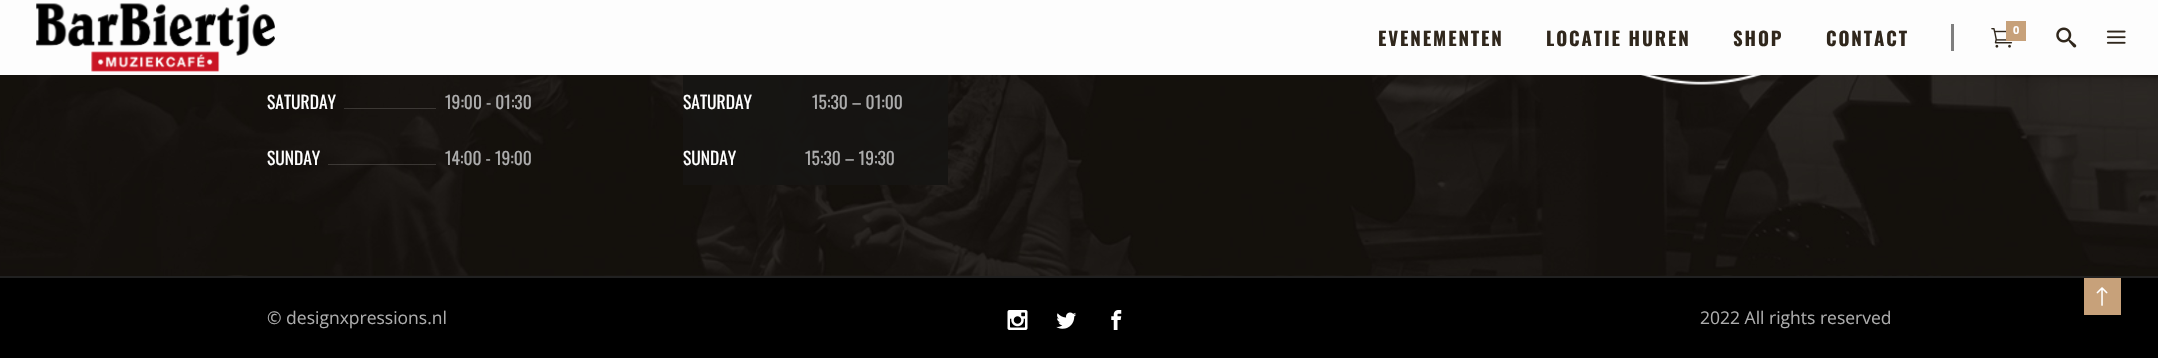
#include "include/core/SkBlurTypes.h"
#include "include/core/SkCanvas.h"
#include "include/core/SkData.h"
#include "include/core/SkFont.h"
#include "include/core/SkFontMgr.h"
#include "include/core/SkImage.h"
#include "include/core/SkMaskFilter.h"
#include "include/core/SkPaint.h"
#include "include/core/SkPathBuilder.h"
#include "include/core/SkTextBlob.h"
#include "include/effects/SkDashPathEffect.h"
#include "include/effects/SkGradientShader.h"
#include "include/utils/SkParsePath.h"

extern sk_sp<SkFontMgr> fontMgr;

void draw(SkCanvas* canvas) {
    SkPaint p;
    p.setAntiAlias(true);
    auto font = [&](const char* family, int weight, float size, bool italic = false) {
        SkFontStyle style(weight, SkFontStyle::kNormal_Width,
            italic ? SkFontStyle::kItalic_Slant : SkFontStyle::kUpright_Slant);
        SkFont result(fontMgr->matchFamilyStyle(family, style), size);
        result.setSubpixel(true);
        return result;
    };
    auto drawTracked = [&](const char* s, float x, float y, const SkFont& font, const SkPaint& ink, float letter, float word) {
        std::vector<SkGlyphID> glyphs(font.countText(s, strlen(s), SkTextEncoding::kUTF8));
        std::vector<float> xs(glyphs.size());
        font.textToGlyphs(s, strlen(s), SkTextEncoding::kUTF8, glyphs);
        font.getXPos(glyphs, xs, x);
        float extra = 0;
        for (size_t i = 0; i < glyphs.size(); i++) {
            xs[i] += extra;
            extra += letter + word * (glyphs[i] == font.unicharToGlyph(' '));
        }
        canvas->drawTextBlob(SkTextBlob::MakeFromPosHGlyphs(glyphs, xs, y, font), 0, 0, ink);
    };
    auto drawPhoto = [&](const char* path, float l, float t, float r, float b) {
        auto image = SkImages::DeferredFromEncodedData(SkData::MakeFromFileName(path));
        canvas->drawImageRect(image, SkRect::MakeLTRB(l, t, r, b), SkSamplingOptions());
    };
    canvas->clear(0xFF000000);
    p.setColor(0xFFFDFDFD);
    canvas->drawRect(SkRect::MakeLTRB(0, 0, 2158, 75), p);
    drawPhoto("media/1.png", 36, 3, 275, 72);
    auto font1 = font("Oswald", 700, 18.75f);
    p.setColor(0xFF30271C);
    {
        const struct { const char* s; float x, y; } items[] = {
            {"EVENEMENTEN", 1378, 46},
            {"LOCATIE HUREN", 1546, 46},
            {"SHOP", 1733, 46},
        };
        for (auto [s, x, y] : items) {
            drawTracked(s, x, y, font1, p, 1.9f, 0);
        }
    }
    p.setColor(0xFF7F7F7F);
    canvas->drawRect(SkRect::MakeLTRB(1951, 24, 1954, 51), p);
    p.setColor(0xFF30271C);
    drawTracked("CONTACT", 1826, 46, font1, p, 1.9f, 0);
    drawPhoto("media/2.png", 1991, 28, 2013, 48);
    p.setColor(0xFFC7A17A);
    canvas->drawRect(SkRect::MakeLTRB(2006, 21, 2026, 41), p);
    auto font2 = font("Open Sans", 700, 11);
    p.setColor(0xFFFFFFFF);
    canvas->drawString("0", 2013, 34, font2, p);
    drawPhoto("media/3.png", 2056, 27, 2077, 48);
    drawPhoto("media/4.png", 2106, 30, 2126, 44);
    p.setColor(0xFF212121);
    canvas->drawRect(SkRect::MakeLTRB(0, 276, 2158, 278), p);
    drawPhoto("media/5.png", 0, 75, 2158, 276);
    drawPhoto("media/6.png", 1641, 75, 1762, 85);
    auto font3 = font("Oswald", 400, 17.5f);
    p.setColor(0xFFFFFFFF);
    canvas->drawString("SATURDAY", 267, 109, font3, p);
    p.setColor(0x40A8A4A1);
    canvas->drawRect(SkRect::MakeLTRB(344, 108, 436, 109), p);
    p.setColor(0xFFACACAC);
    canvas->drawString("19:00 - 01:30", 445, 109, font3, p);
    p.setColor(0xFFFFFFFF);
    canvas->drawString("SUNDAY", 267, 165, font3, p);
    p.setColor(0x40A8A4A1);
    canvas->drawRect(SkRect::MakeLTRB(328, 164, 436, 165), p);
    p.setColor(0xFFACACAC);
    canvas->drawString("14:00 - 19:00", 445, 165, font3, p);
    p.setColor(0xF2151412);
    canvas->drawRect(SkRect::MakeLTRB(683, 75, 948, 185), p);
    p.setColor(0xFFFFFFFF);
    canvas->drawString("SATURDAY", 683, 109, font3, p);
    p.setColor(0xFFACACAC);
    canvas->drawString("15:30 – 01:00", 812, 109, font3, p);
    p.setColor(0xFFFFFFFF);
    canvas->drawString("SUNDAY", 683, 165, font3, p);
    p.setColor(0xFFACACAC);
    canvas->drawString("15:30 – 19:30", 805, 165, font3, p);
    auto font4 = font("Open Sans", 400, 17.5f);
    canvas->drawString("© designxpressions.nl", 267, 324, font4, p);
    drawPhoto("media/7.png", 1007, 310, 1028, 330);
    drawPhoto("media/8.png", 1056, 312, 1077, 329);
    drawPhoto("media/9.png", 1111, 310, 1122, 330);
    canvas->drawString("2022 All rights reserved", 1700, 324, font4, p);
    p.setColor(0xFFC7A17A);
    canvas->drawRect(SkRect::MakeLTRB(2084, 278, 2121, 315), p);
    drawPhoto("media/10.png", 2096, 287, 2108, 306);
}
